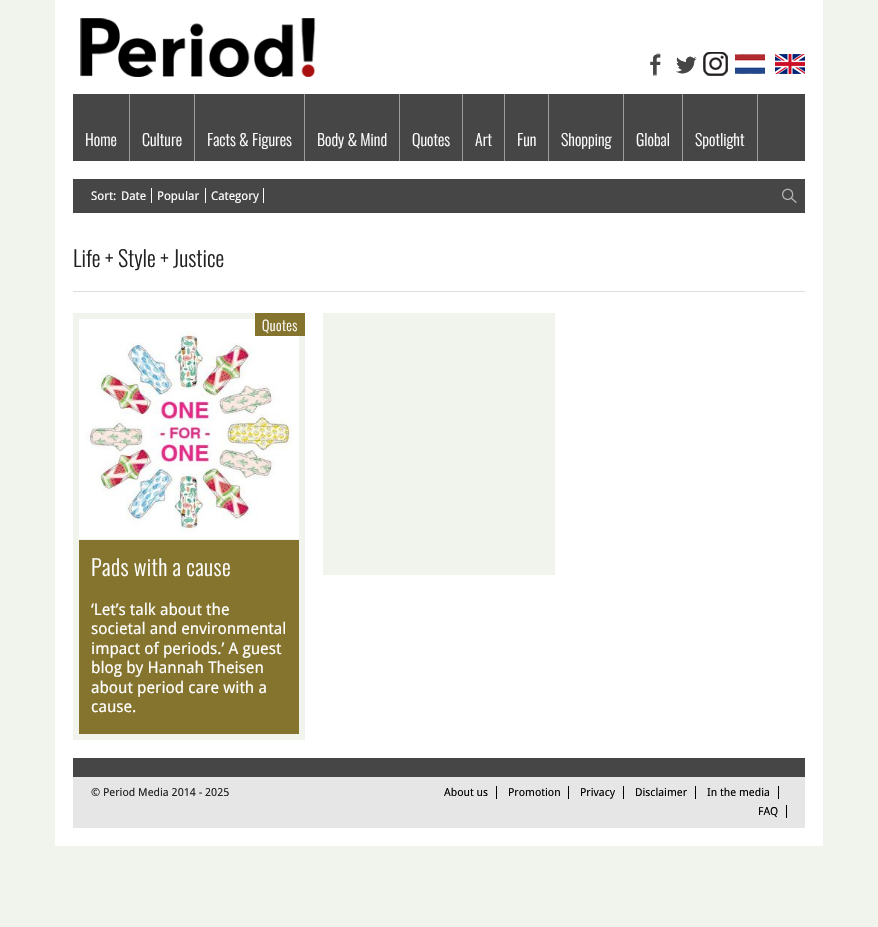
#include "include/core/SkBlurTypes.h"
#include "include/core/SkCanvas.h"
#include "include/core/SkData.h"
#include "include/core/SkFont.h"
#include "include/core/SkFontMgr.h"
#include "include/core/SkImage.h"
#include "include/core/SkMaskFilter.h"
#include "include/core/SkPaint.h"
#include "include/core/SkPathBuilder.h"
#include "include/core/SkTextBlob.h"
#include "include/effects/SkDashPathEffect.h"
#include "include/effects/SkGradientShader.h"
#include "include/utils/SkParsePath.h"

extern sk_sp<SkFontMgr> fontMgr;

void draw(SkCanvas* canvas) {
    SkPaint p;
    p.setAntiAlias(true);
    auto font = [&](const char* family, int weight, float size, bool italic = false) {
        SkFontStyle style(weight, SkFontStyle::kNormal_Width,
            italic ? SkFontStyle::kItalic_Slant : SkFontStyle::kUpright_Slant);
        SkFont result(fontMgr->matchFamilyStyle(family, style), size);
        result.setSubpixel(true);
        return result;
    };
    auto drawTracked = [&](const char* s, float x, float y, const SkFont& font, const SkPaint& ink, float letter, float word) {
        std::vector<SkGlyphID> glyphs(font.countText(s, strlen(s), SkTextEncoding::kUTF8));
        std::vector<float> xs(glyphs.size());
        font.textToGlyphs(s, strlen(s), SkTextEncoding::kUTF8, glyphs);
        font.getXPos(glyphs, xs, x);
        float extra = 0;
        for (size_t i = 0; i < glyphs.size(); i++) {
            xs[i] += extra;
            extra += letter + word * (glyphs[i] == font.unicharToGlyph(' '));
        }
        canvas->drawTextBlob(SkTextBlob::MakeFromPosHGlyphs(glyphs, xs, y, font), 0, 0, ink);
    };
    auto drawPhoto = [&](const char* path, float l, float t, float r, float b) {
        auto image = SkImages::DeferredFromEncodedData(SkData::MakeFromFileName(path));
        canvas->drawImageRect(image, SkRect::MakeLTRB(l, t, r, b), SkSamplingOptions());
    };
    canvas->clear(0xFFF1F4ED);
    p.setColor(0xFFFFFFFF);
    canvas->drawRect(SkRect::MakeLTRB(55, 0, 823, 846), p);
    drawPhoto("media/1.png", 650, 53, 661, 76);
    drawPhoto("media/2.png", 676, 56, 697, 74);
    drawPhoto("media/3.png", 703, 52, 728, 76);
    drawPhoto("media/4.png", 735, 54, 765, 74);
    drawPhoto("media/5.png", 775, 54, 805, 74);
    drawPhoto("media/6.png", 80, 18, 316, 77);
    p.setColor(0xFF464646);
    canvas->drawRect(SkRect::MakeLTRB(73, 94, 805, 161), p);
    p.setColor(0xFF9D9D9D);
    canvas->drawRect(SkRect::MakeLTRB(129, 94, 130, 161), p);
    auto font1 = font("Oswald", 300, 16);
    p.setColor(0xFFFFFFFF);
    canvas->drawString("Home", 85, 146, font1, p);
    p.setColor(0xFF9D9D9D);
    canvas->drawRect(SkRect::MakeLTRB(194, 94, 195, 161), p);
    p.setColor(0xFFFFFFFF);
    canvas->drawString("Culture", 142, 146, font1, p);
    p.setColor(0xFF9D9D9D);
    canvas->drawRect(SkRect::MakeLTRB(304, 94, 305, 161), p);
    p.setColor(0xFFFFFFFF);
    canvas->drawString("Facts & Figures", 207, 146, font1, p);
    p.setColor(0xFF9D9D9D);
    canvas->drawRect(SkRect::MakeLTRB(399, 94, 400, 161), p);
    p.setColor(0xFFFFFFFF);
    canvas->drawString("Body & Mind", 317, 146, font1, p);
    p.setColor(0xFF9D9D9D);
    canvas->drawRect(SkRect::MakeLTRB(462, 94, 463, 161), p);
    p.setColor(0xFFFFFFFF);
    canvas->drawString("Quotes", 412, 146, font1, p);
    p.setColor(0xFF9D9D9D);
    canvas->drawRect(SkRect::MakeLTRB(504, 94, 505, 161), p);
    p.setColor(0xFFFFFFFF);
    canvas->drawString("Art", 475, 146, font1, p);
    p.setColor(0xFF9D9D9D);
    canvas->drawRect(SkRect::MakeLTRB(548, 94, 549, 161), p);
    p.setColor(0xFFFFFFFF);
    canvas->drawString("Fun", 517, 146, font1, p);
    p.setColor(0xFF9D9D9D);
    canvas->drawRect(SkRect::MakeLTRB(623, 94, 624, 161), p);
    p.setColor(0xFFFFFFFF);
    canvas->drawString("Shopping", 561, 146, font1, p);
    p.setColor(0xFF9D9D9D);
    canvas->drawRect(SkRect::MakeLTRB(682, 94, 683, 161), p);
    p.setColor(0xFFFFFFFF);
    canvas->drawString("Global", 636, 146, font1, p);
    p.setColor(0xFF9D9D9D);
    canvas->drawRect(SkRect::MakeLTRB(757, 94, 758, 161), p);
    p.setColor(0xFFFFFFFF);
    canvas->drawString("Spotlight", 695, 146, font1, p);
    p.setColor(0xFF464646);
    canvas->drawRect(SkRect::MakeLTRB(73, 179, 805, 213), p);
    auto font2 = font("Droid Sans", 400, 12);
    p.setColor(0xFFFFFFFF);
    canvas->drawString("Sort:", 91, 200, font2, p);
    canvas->drawRect(SkRect::MakeLTRB(151, 188, 152, 203), p);
    canvas->drawString("Date", 121, 200, font2, p);
    canvas->drawRect(SkRect::MakeLTRB(205, 188, 206, 203), p);
    canvas->drawString("Popular", 157, 200, font2, p);
    canvas->drawRect(SkRect::MakeLTRB(263, 188, 264, 203), p);
    canvas->drawString("Category", 211, 200, font2, p);
    drawPhoto("media/7.png", 782, 188, 797, 203);
    auto font3 = font("Oswald", 300, 22);
    p.setColor(0xFF222222);
    canvas->drawString("Life + Style + Justice", 73, 267, font3, p);
    p.setColor(0xFFDDDDDD);
    canvas->drawRect(SkRect::MakeLTRB(73, 291, 805, 292), p);
    p.setColor(0xFFF1F4ED);
    canvas->drawRect(SkRect::MakeLTRB(73, 313, 305, 740), p);
    drawPhoto("media/8.png", 79, 319, 299, 539);
    p.setColor(0xFF85742E);
    canvas->drawRect(SkRect::MakeLTRB(255, 313, 305, 336), p);
    auto font4 = font("Oswald", 300, 14);
    p.setColor(0xFFFFFFFF);
    drawTracked("Quotes", 262, 331, font4, p, 0.4f, 0);
    p.setColor(0xFF85742E);
    canvas->drawRect(SkRect::MakeLTRB(79, 540, 299, 734), p);
    p.setColor(0xFFFFFFFF);
    drawTracked("Pads with a cause", 91, 576, font3, p, 0.4f, 0);
    auto font5 = font("Droid Sans", 400, 16);
    {
        const struct { const char* s; float x, y; } items[] = {
            {"‘Let’s talk about the", 91, 615},
            {"societal and environmental", 91, 634},
            {"impact of periods.’ A guest", 91, 654},
            {"blog by Hannah Theisen", 91, 673},
            {"about period care with a", 91, 693},
            {"cause.", 91, 712},
        };
        for (auto [s, x, y] : items) {
            canvas->drawString(s, x, y, font5, p);
        }
    }
    {
        const struct { float l, t, r, b; SkColor color; } items[] = {
            {323, 313, 555, 575, 0xFFF1F4ED},
            {73, 758, 805, 777, 0xFF464646},
            {73, 777, 805, 828, 0xFFE6E6E6},
        };
        for (auto [l, t, r, b, color] : items) {
            p.setColor(color);
            canvas->drawRect(SkRect::MakeLTRB(l, t, r, b), p);
        }
    }
    auto font6 = font("Droid Sans", 400, 11);
    p.setColor(0xFF222222);
    canvas->drawString("© Period Media 2014 - 2025", 91, 796, font6, p);
    p.setColor(0xFF000000);
    canvas->drawString("About us", 444, 796, font6, p);
    canvas->drawRect(SkRect::MakeLTRB(496, 786, 497, 799), p);
    canvas->drawString("Promotion", 508, 796, font6, p);
    canvas->drawRect(SkRect::MakeLTRB(568, 786, 569, 799), p);
    canvas->drawString("Privacy", 580, 796, font6, p);
    canvas->drawRect(SkRect::MakeLTRB(623, 786, 624, 799), p);
    canvas->drawString("Disclaimer", 635, 796, font6, p);
    canvas->drawRect(SkRect::MakeLTRB(695, 786, 696, 799), p);
    canvas->drawString("In the media", 707, 796, font6, p);
    canvas->drawRect(SkRect::MakeLTRB(778, 786, 779, 799), p);
    canvas->drawString("FAQ", 758, 815, font6, p);
    canvas->drawRect(SkRect::MakeLTRB(786, 805, 787, 818), p);
}
